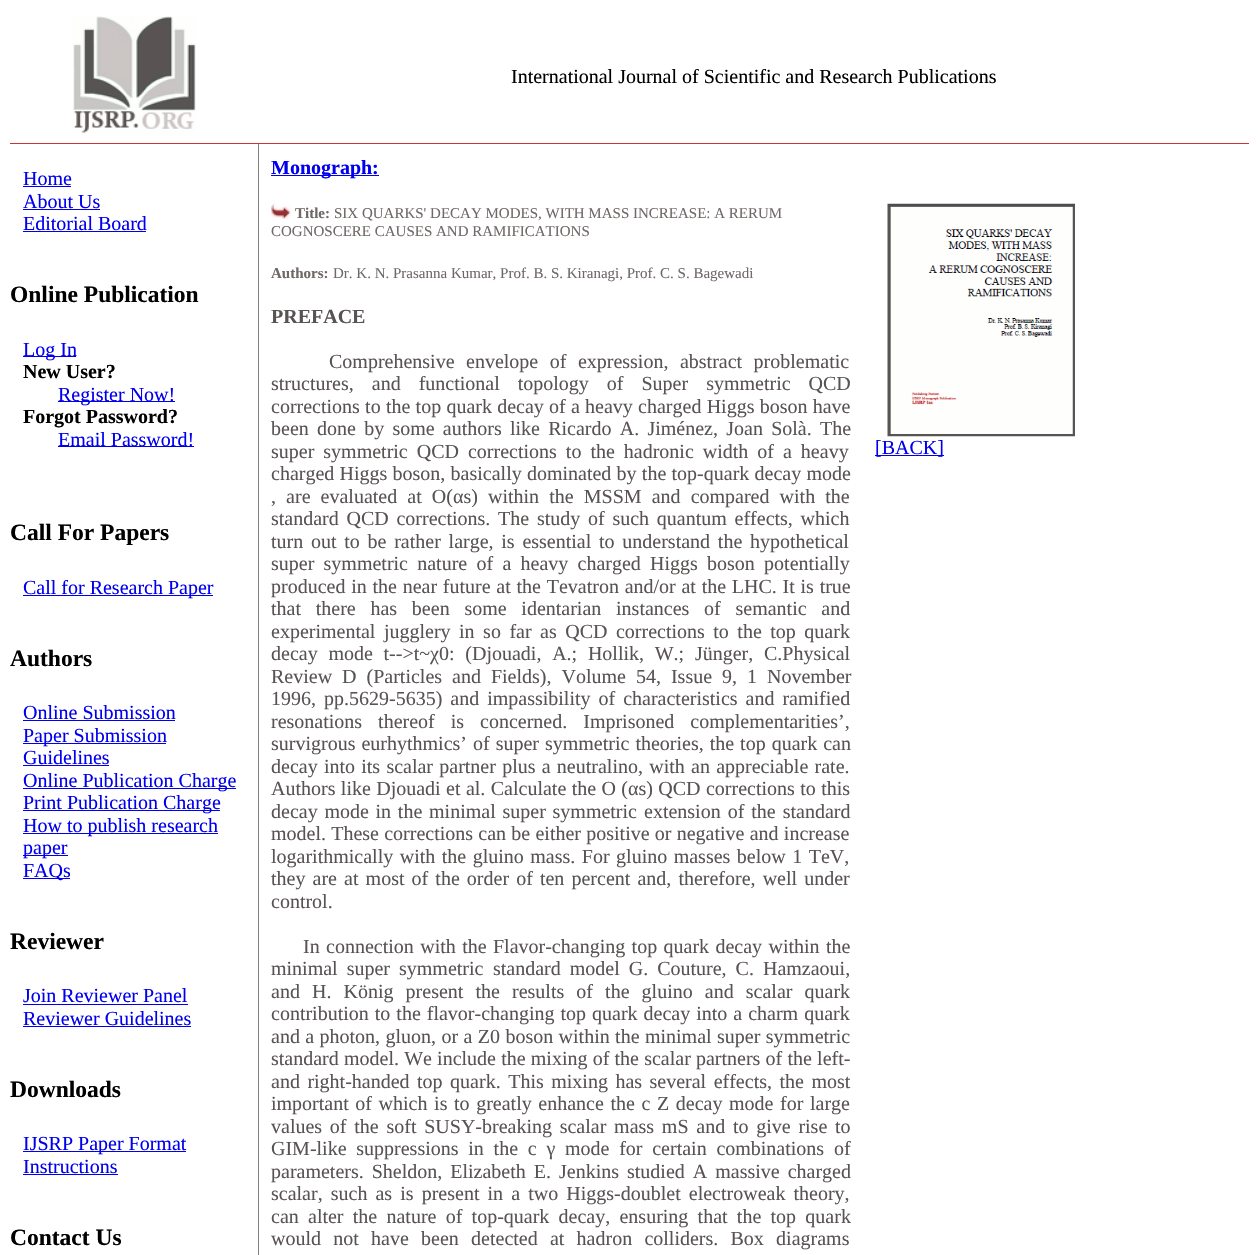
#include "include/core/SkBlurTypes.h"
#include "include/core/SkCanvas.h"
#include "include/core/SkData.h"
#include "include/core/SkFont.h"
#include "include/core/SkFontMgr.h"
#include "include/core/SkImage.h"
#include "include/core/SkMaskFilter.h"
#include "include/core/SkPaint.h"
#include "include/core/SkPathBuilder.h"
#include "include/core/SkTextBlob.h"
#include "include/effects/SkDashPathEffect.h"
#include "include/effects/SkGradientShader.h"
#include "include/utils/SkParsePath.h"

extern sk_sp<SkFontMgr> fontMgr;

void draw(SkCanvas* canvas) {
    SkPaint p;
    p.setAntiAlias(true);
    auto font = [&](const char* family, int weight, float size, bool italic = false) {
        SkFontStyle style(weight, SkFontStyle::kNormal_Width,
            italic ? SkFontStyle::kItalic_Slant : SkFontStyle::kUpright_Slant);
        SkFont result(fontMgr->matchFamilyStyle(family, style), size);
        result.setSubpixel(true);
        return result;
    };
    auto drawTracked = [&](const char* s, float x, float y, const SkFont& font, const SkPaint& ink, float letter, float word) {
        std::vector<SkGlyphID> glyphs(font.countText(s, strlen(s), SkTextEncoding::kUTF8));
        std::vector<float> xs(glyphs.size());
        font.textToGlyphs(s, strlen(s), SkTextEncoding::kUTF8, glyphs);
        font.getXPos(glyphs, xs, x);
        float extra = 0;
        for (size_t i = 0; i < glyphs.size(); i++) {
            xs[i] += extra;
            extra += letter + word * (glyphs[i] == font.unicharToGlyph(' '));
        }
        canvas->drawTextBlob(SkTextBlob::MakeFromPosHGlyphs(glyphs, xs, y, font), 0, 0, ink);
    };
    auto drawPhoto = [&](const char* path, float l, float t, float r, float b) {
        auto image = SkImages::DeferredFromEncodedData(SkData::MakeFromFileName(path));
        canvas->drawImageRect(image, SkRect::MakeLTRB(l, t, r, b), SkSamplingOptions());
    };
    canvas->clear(0xFFFFFFFF);
    drawPhoto("media/1.png", 73, 16, 196, 133);
    auto font1 = font("Liberation Serif", 400, 20);
    p.setColor(0xFF000000);
    canvas->drawString("International Journal of Scientific and Research Publications", 511, 83, font1, p);
    p.setColor(0xFFCC3333);
    canvas->drawRect(SkRect::MakeLTRB(10, 143, 1249, 144), p);
    p.setColor(0xFF0000EE);
    canvas->drawString("Home", 23, 185, font1, p);
    canvas->drawRect(SkRect::MakeLTRB(23, 186, 71, 187), p);
    canvas->drawString("About Us", 23, 208, font1, p);
    canvas->drawRect(SkRect::MakeLTRB(23, 209, 100, 210), p);
    canvas->drawString("Editorial Board", 23, 230, font1, p);
    canvas->drawRect(SkRect::MakeLTRB(23, 231, 146, 232), p);
    auto font2 = font("Liberation Serif", 700, 23.5f);
    p.setColor(0xFF000000);
    canvas->drawString("Online Publication", 10, 302, font2, p);
    p.setColor(0xFF0000EE);
    canvas->drawRect(SkRect::MakeLTRB(23, 356, 76, 357), p);
    canvas->drawString("Log In", 23, 356, font1, p);
    auto font3 = font("Liberation Serif", 700, 20);
    p.setColor(0xFF000000);
    canvas->drawString("New User?", 23, 378, font3, p);
    p.setColor(0xFF0000EE);
    canvas->drawRect(SkRect::MakeLTRB(58, 401, 175, 402), p);
    canvas->drawString("Register Now!", 58, 401, font1, p);
    p.setColor(0xFF000000);
    canvas->drawString("Forgot Password?", 23, 423, font3, p);
    p.setColor(0xFF0000EE);
    canvas->drawRect(SkRect::MakeLTRB(58, 446, 194, 447), p);
    canvas->drawString("Email Password!", 58, 446, font1, p);
    p.setColor(0xFF000000);
    canvas->drawString("Call For Papers", 10, 540, font2, p);
    p.setColor(0xFF0000EE);
    canvas->drawRect(SkRect::MakeLTRB(23, 595, 213, 596), p);
    canvas->drawString("Call for Research Paper", 23, 594, font1, p);
    p.setColor(0xFF000000);
    canvas->drawString("Authors", 10, 666, font2, p);
    p.setColor(0xFF0000EE);
    canvas->drawString("Online Submission", 23, 719, font1, p);
    canvas->drawRect(SkRect::MakeLTRB(23, 720, 175, 721), p);
    canvas->drawRect(SkRect::MakeLTRB(23, 743, 166, 744), p);
    canvas->drawString("Paper Submission", 23, 742, font1, p);
    canvas->drawString("Guidelines", 23, 764, font1, p);
    canvas->drawRect(SkRect::MakeLTRB(23, 765, 109, 766), p);
    canvas->drawRect(SkRect::MakeLTRB(23, 788, 236, 789), p);
    canvas->drawString("Online Publication Charge", 23, 787, font1, p);
    canvas->drawRect(SkRect::MakeLTRB(23, 810, 220, 811), p);
    canvas->drawString("Print Publication Charge", 23, 809, font1, p);
    canvas->drawRect(SkRect::MakeLTRB(23, 833, 218, 834), p);
    canvas->drawString("How to publish research", 23, 832, font1, p);
    canvas->drawRect(SkRect::MakeLTRB(23, 855, 68, 856), p);
    canvas->drawString("paper", 23, 854, font1, p);
    canvas->drawRect(SkRect::MakeLTRB(23, 878, 70, 879), p);
    canvas->drawString("FAQs", 23, 877, font1, p);
    p.setColor(0xFF000000);
    canvas->drawString("Reviewer", 10, 949, font2, p);
    p.setColor(0xFF0000EE);
    canvas->drawString("Join Reviewer Panel", 23, 1002, font1, p);
    canvas->drawRect(SkRect::MakeLTRB(23, 1004, 188, 1005), p);
    canvas->drawString("Reviewer Guidelines", 23, 1025, font1, p);
    canvas->drawRect(SkRect::MakeLTRB(23, 1026, 191, 1027), p);
    p.setColor(0xFF000000);
    canvas->drawString("Downloads", 10, 1097, font2, p);
    p.setColor(0xFF0000EE);
    canvas->drawRect(SkRect::MakeLTRB(23, 1151, 186, 1152), p);
    canvas->drawString("IJSRP Paper Format", 23, 1150, font1, p);
    canvas->drawString("Instructions", 23, 1173, font1, p);
    canvas->drawRect(SkRect::MakeLTRB(23, 1174, 118, 1175), p);
    p.setColor(0xFF000000);
    canvas->drawString("Contact Us", 10, 1245, font2, p);
    p.setColor(0xFF808080);
    canvas->drawRect(SkRect::MakeLTRB(258, 144, 259, 1255), p);
    p.setColor(0xFF0000EE);
    canvas->drawRect(SkRect::MakeLTRB(271, 175, 379, 176), p);
    canvas->drawString("Monograph:", 271, 174, font3, p);
    drawPhoto("media/2.png", 271, 203, 291, 219);
    auto font4 = font("Liberation Serif", 700, 15);
    p.setColor(0xFF6F6867);
    canvas->drawString("Title:", 295, 218, font4, p);
    auto font5 = font("Liberation Serif", 400, 15);
    canvas->drawString("SIX QUARKS' DECAY MODES, WITH MASS INCREASE: A RERUM", 334, 218, font5, p);
    canvas->drawString("COGNOSCERE CAUSES AND RAMIFICATIONS", 271, 236, font5, p);
    canvas->drawString("Authors:", 271, 278, font4, p);
    canvas->drawString("Dr. K. N. Prasanna Kumar, Prof. B. S. Kiranagi, Prof. C. S. Bagewadi", 333, 278, font5, p);
    p.setColor(0xFF595453);
    canvas->drawString("PREFACE", 271, 323, font3, p);
    drawTracked("Comprehensive envelope of expression, abstract problematic", 329, 368, font1, p, 0, 6.5f);
    drawTracked("structures, and functional topology of Super symmetric QCD", 271, 390, font1, p, 0, 13);
    drawTracked("corrections to the top quark decay of a heavy charged Higgs boson have", 271, 413, font1, p, 0, 0.25f);
    drawTracked("been done by some authors like Ricardo A. Jiménez, Joan Solà. The", 271, 435, font1, p, 0, 3.25f);
    drawTracked("super symmetric QCD corrections to the hadronic width of a heavy", 271, 458, font1, p, 0, 4);
    drawTracked("charged Higgs boson, basically dominated by the top-quark decay mode", 271, 480, font1, p, 0, 0.25f);
    drawTracked(", are evaluated at O(αs) within the MSSM and compared with the", 271, 503, font1, p, 0, 5.1f);
    drawTracked("standard QCD corrections. The study of such quantum effects, which", 271, 525, font1, p, 0, 2.75f);
    drawTracked("turn out to be rather large, is essential to understand the hypothetical", 271, 548, font1, p, 0, 2.75f);
    drawTracked("super symmetric nature of a heavy charged Higgs boson potentially", 271, 570, font1, p, 0, 4.25f);
    drawTracked("produced in the near future at the Tevatron and/or at the LHC. It is true", 271, 593, font1, p, 0, 0.75f);
    drawTracked("that there has been some identarian instances of semantic and", 271, 615, font1, p, 0, 9.75f);
    drawTracked("experimental jugglery in so far as QCD corrections to the top quark", 271, 638, font1, p, 0, 3.5f);
    drawTracked("decay mode t-->t~χ0: (Djouadi, A.; Hollik, W.; Jünger, C.Physical", 271, 660, font1, p, 0, 5.75f);
    drawTracked("Review D (Particles and Fields), Volume 54, Issue 9, 1 November", 271, 683, font1, p, 0, 5);
    drawTracked("1996, pp.5629-5635) and impassibility of characteristics and ramified", 271, 705, font1, p, 0, 3);
    drawTracked("resonations thereof is concerned. Imprisoned complementarities’,", 271, 728, font1, p, 0, 11);
    drawTracked("survigrous eurhythmics’ of super symmetric theories, the top quark can", 271, 750, font1, p, 0, 1);
    drawTracked("decay into its scalar partner plus a neutralino, with an appreciable rate.", 271, 773, font1, p, 0, 1.25f);
    drawTracked("Authors like Djouadi et al. Calculate the O (αs) QCD corrections to this", 271, 795, font1, p, 0, 0.4f);
    drawTracked("decay mode in the minimal super symmetric", 271, 818, font1, p, 0, 1.75f);
    drawTracked("extension of the standard", 644, 818, font1, p, 0, 2);
    drawTracked("model. These corrections can be either positive or negative and increase", 271, 840, font1, p, 0, 0.25f);
    drawTracked("logarithmically with the gluino mass. For gluino masses below 1 TeV,", 271, 863, font1, p, 0, 1.5f);
    drawTracked("they are at most of the order of ten percent and, therefore, well under", 271, 885, font1, p, 0, 2.1f);
    canvas->drawString("control.", 271, 908, font1, p);
    drawTracked("In connection with the Flavor-changing top quark decay within the", 303, 953, font1, p, 0, 1.4f);
    drawTracked("minimal super symmetric", 271, 975, font1, p, 0, 4);
    drawTracked("standard model G. Couture, C. Hamzaoui,", 493, 975, font1, p, 0, 4);
    drawTracked("and H. König present the results of the gluino and scalar quark", 271, 998, font1, p, 0, 7.1f);
    drawTracked("contribution to the flavor-changing top quark decay into a charm quark", 271, 1020, font1, p, 0, 1);
    drawTracked("and a photon, gluon, or a Z0 boson within the minimal super symmetric", 271, 1043, font1, p, 0, 0.4f);
    drawTracked("standard model. We include the mixing of the scalar partners of the left-", 271, 1065, font1, p, 0, 0.2f);
    drawTracked("and right-handed top quark. This mixing has several effects, the most", 271, 1088, font1, p, 0, 2.5f);
    drawTracked("important of which is to greatly enhance the c Z decay mode for large", 271, 1110, font1, p, 0, 1.6f);
    drawTracked("values of the soft SUSY-breaking scalar mass mS and to give rise to", 271, 1133, font1, p, 0, 2.75f);
    drawTracked("GIM-like suppressions in the c γ mode for certain combinations of", 271, 1155, font1, p, 0, 4.75f);
    drawTracked("parameters. Sheldon, Elizabeth E. Jenkins studied A massive charged", 271, 1178, font1, p, 0, 3);
    drawTracked("scalar, such as is present in a two Higgs-doublet electroweak theory,", 271, 1200, font1, p, 0, 3.1f);
    drawTracked("can alter the nature of top-quark decay, ensuring that the top quark", 271, 1223, font1, p, 0, 4.25f);
    drawTracked("would not have been detected at hadron colliders. Box diagrams", 271, 1245, font1, p, 0, 7.25f);
    drawPhoto("media/3.png", 887, 203, 1075, 437);
    p.setColor(0xFF0000EE);
    canvas->drawRect(SkRect::MakeLTRB(875, 455, 944, 456), p);
    canvas->drawString("[BACK]", 875, 454, font1, p);
}
